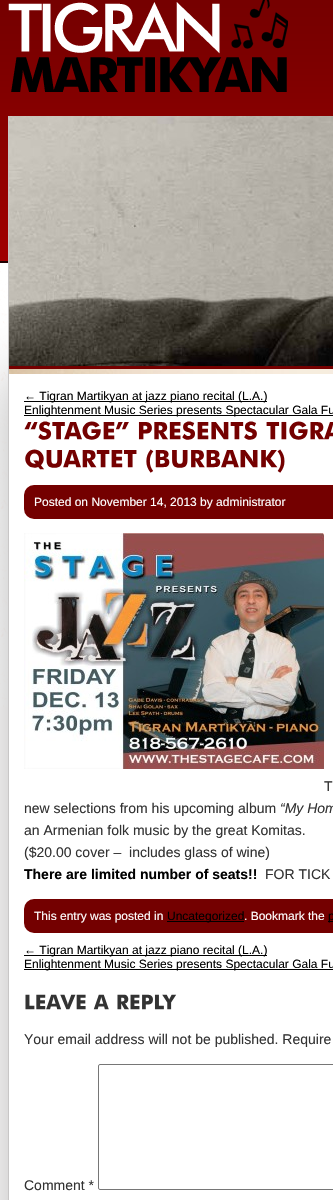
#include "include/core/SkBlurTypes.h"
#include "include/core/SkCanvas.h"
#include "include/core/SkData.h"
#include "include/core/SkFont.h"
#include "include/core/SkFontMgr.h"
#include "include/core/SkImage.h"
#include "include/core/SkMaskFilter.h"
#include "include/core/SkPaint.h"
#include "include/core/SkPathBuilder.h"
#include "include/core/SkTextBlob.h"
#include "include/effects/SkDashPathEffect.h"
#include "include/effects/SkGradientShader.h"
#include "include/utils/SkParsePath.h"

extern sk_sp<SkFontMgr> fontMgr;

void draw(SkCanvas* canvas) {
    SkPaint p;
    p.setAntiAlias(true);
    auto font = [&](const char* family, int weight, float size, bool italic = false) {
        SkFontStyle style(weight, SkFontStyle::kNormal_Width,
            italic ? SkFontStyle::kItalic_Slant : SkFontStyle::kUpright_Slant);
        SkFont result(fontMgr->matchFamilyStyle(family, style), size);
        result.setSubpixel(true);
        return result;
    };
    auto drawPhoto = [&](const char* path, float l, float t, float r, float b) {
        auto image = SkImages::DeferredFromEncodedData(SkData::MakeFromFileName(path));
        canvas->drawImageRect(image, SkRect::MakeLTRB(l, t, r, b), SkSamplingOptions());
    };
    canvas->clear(0xFFFFFDFD);
    drawPhoto("media/1.png", 0, 0, 333, 707);
    drawPhoto("media/2.png", 8, 0, 288, 92);
    p.setColor(0xFFBBBBBB);
    p.setMaskFilter(SkMaskFilter::MakeBlur(kNormal_SkBlurStyle, 25));
    canvas->drawRect(SkRect::MakeLTRB(8, 374, 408, 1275), p);
    p.setMaskFilter(nullptr);
    p.setColor(0xFF760000);
    canvas->drawRect(SkRect::MakeLTRB(9, 366, 333, 369), p);
    drawPhoto("media/3.png", 9, 116, 333, 366);
    drawPhoto("media/4.png", 9, 369, 333, 374);
    {
        const struct { float l, t, r, b; SkColor color; } items[] = {
            {9, 374, 333, 1200, 0xFFFFFFFF},
            {8, 116, 9, 1200, 0xFFC8C6C6},
            {24, 401, 267, 402, 0xFF000000},
        };
        for (auto [l, t, r, b, color] : items) {
            p.setColor(color);
            canvas->drawRect(SkRect::MakeLTRB(l, t, r, b), p);
        }
    }
    auto font1 = font("Liberation Sans", 400, 12);
    canvas->drawString("← Tigran Martikyan at jazz piano recital (L.A.)", 24, 400, font1, p);
    canvas->drawRect(SkRect::MakeLTRB(24, 415, 333, 416), p);
    canvas->drawString("Enlightenment Music Series presents Spectacular Gala Fu", 24, 414, font1, p);
    drawPhoto("media/5.png", 24, 421, 129, 440);
    drawPhoto("media/6.png", 138, 421, 257, 440);
    drawPhoto("media/7.png", 266, 421, 333, 440);
    drawPhoto("media/8.png", 25, 449, 137, 470);
    drawPhoto("media/9.png", 146, 449, 285, 473);
    p.setColor(0xFF740000);
    canvas->drawRoundRect(SkRect::MakeLTRB(24, 485, 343, 519), 10, 10, p);
    p.setColor(0xFFFFFFFF);
    canvas->drawString("Posted on November 14, 2013 by administrator", 34, 506, font1, p);
    drawPhoto("media/10.png", 24, 533, 324, 769);
    auto font2 = font("Liberation Sans", 400, 14);
    p.setColor(0xFF333333);
    canvas->drawString("T", 324, 791, font2, p);
    canvas->drawString("new selections from his upcoming album", 24, 813, font2, p);
    auto font3 = font("Liberation Sans", 400, 14, true);
    canvas->drawString("“My Hom", 280, 813, font3, p);
    canvas->drawString("an Armenian folk music by the great Komitas.", 24, 835, font2, p);
    canvas->drawString("($20.00 cover –  includes glass of wine)", 24, 857, font2, p);
    auto font4 = font("Liberation Sans", 700, 14);
    p.setColor(0xFF000000);
    canvas->drawString("There are limited number of seats!!", 24, 879, font4, p);
    p.setColor(0xFF333333);
    canvas->drawString("FOR TICK", 265, 879, font2, p);
    p.setColor(0xFF740000);
    canvas->drawRoundRect(SkRect::MakeLTRB(24, 899, 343, 933), 10, 10, p);
    p.setColor(0xFFFFFFFF);
    canvas->drawString("This entry was posted in", 34, 920, font1, p);
    p.setColor(0xFF000000);
    canvas->drawRect(SkRect::MakeLTRB(167, 921, 244, 922), p);
    canvas->drawString("Uncategorized", 167, 920, font1, p);
    p.setColor(0xFFFFFFFF);
    canvas->drawString(". Bookmark the", 244, 920, font1, p);
    p.setColor(0xFF000000);
    canvas->drawRect(SkRect::MakeLTRB(328, 921, 333, 922), p);
    canvas->drawString("p", 328, 920, font1, p);
    canvas->drawRect(SkRect::MakeLTRB(24, 955, 267, 956), p);
    canvas->drawString("← Tigran Martikyan at jazz piano recital (L.A.)", 24, 954, font1, p);
    canvas->drawRect(SkRect::MakeLTRB(24, 969, 333, 970), p);
    canvas->drawString("Enlightenment Music Series presents Spectacular Gala Fu", 24, 968, font1, p);
    drawPhoto("media/11.png", 25, 994, 86, 1010);
    drawPhoto("media/12.png", 93, 994, 109, 1010);
    drawPhoto("media/13.png", 117, 994, 177, 1010);
    p.setColor(0xFF333333);
    canvas->drawString("Your email address will not be published. Require", 24, 1044, font2, p);
    canvas->drawString("Comment *", 24, 1190, font2, p);
    p.setStyle(SkPaint::kStroke_Style);
    p.setStrokeWidth(1);
    p.setColor(0xFF767676);
    canvas->drawRoundRect(SkRect::MakeLTRB(98.5f, 1064.5f, 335.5f, 1189.5f), 1.5f, 1.5f, p);
}
